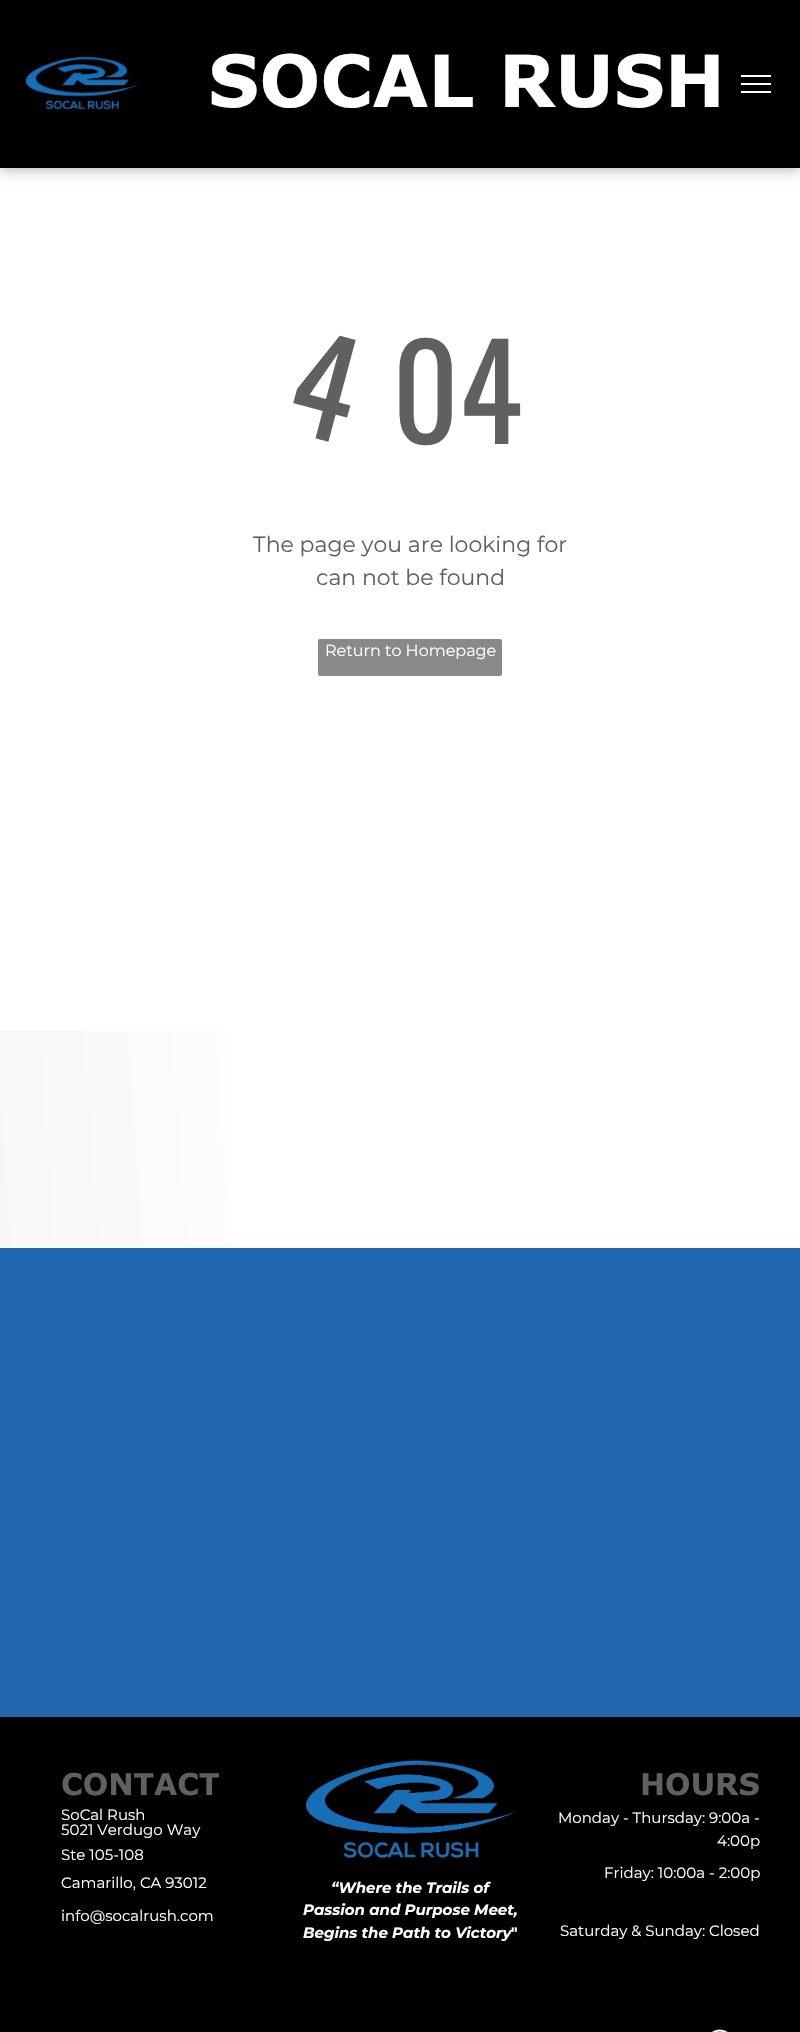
#include "include/core/SkBlurTypes.h"
#include "include/core/SkCanvas.h"
#include "include/core/SkData.h"
#include "include/core/SkFont.h"
#include "include/core/SkFontMgr.h"
#include "include/core/SkImage.h"
#include "include/core/SkMaskFilter.h"
#include "include/core/SkPaint.h"
#include "include/core/SkPathBuilder.h"
#include "include/core/SkTextBlob.h"
#include "include/effects/SkDashPathEffect.h"
#include "include/effects/SkGradientShader.h"
#include "include/utils/SkParsePath.h"

extern sk_sp<SkFontMgr> fontMgr;

void draw(SkCanvas* canvas) {
    SkPaint p;
    p.setAntiAlias(true);
    auto font = [&](const char* family, int weight, float size, bool italic = false) {
        SkFontStyle style(weight, SkFontStyle::kNormal_Width,
            italic ? SkFontStyle::kItalic_Slant : SkFontStyle::kUpright_Slant);
        SkFont result(fontMgr->matchFamilyStyle(family, style), size);
        result.setSubpixel(true);
        return result;
    };
    auto drawPhoto = [&](const char* path, float l, float t, float r, float b) {
        auto image = SkImages::DeferredFromEncodedData(SkData::MakeFromFileName(path));
        canvas->drawImageRect(image, SkRect::MakeLTRB(l, t, r, b), SkSamplingOptions());
    };
    canvas->clear(0xFFFFFFFF);
    p.setColor(0x40000000);
    p.setMaskFilter(SkMaskFilter::MakeBlur(kNormal_SkBlurStyle, 5.5f));
    canvas->drawRect(SkRect::MakeLTRB(0, 3, 800, 171), p);
    p.setMaskFilter(nullptr);
    p.setColor(0xFF000000);
    canvas->drawRect(SkRect::MakeLTRB(0, 0, 800, 168), p);
    drawPhoto("media/1.png", 25, 56, 140, 110);
    auto font1 = font("Verdana", 700, 72);
    p.setColor(0xFFFFFFFF);
    canvas->drawString("SOCAL RUSH", 208, 107, font1, p);
    {
        const struct { float l, t, r, b; SkColor color; } items[] = {
            {741, 75, 771, 77, 0xFFFFFFFF},
            {741, 83, 771, 85, 0xFFFFFFFF},
            {741, 91, 771, 93, 0xFFFFFFFF},
        };
        for (auto [l, t, r, b, color] : items) {
            p.setColor(color);
            canvas->drawRect(SkRect::MakeLTRB(l, t, r, b), p);
        }
    }
    {
        const SkColor colors[] = {0xFFFFFFFF, 0xFFF6F6F6};
        const float stops[] = {0.58f, 1};
        const SkPoint ends[] = {{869, 983}, {-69, 1049}};
        p.setShader(SkGradientShader::MakeLinear(ends, colors, stops, 2, SkTileMode::kClamp));
        p.setAlpha(255);
    }
    canvas->drawRect(SkRect::MakeLTRB(0, 1031, 231, 1248), p);
    auto font2 = font("Oswald", 400, 130);
    p.setShader(nullptr);
    p.setColor(0xFF606060);
    canvas->save();
    canvas->rotate(15, 281, 429);
    canvas->drawString("4", 281, 429, font2, p);
    canvas->restore();
    canvas->drawString("04", 392, 444, font2, p);
    auto font3 = font("Montserrat", 400, 22);
    canvas->drawString("The page you are looking for", 253, 552, font3, p);
    canvas->drawString("can not be found", 316, 585, font3, p);
    p.setColor(0xFF898989);
    canvas->drawRoundRect(SkRect::MakeLTRB(318, 639, 502, 676), 2, 2, p);
    auto font4 = font("Montserrat", 400, 16);
    p.setColor(0xFFFFFFFF);
    canvas->drawString("Return to Homepage", 325, 656, font4, p);
    p.setColor(0xFF000000);
    canvas->drawRect(SkRect::MakeLTRB(0, 1717, 800, 2032), p);
    p.setColor(0xFF2268B1);
    canvas->drawRect(SkRect::MakeLTRB(0, 1248, 800, 1717), p);
    auto font5 = font("Verdana", 700, 30);
    p.setColor(0xFF606060);
    canvas->drawString("CONTACT", 61, 1795, font5, p);
    auto font6 = font("Montserrat", 400, 15);
    p.setColor(0xFFFFFFFF);
    {
        const struct { const char* s; float x, y; } items[] = {
            {"SoCal Rush", 61, 1820},
            {"5021 Verdugo Way", 61, 1835},
            {"Ste 105-108", 61, 1860},
            {"Camarillo, CA 93012", 61, 1888},
            {"info@socalrush.com", 61, 1921},
        };
        for (auto [s, x, y] : items) {
            canvas->drawString(s, x, y, font6, p);
        }
    }
    drawPhoto("media/2.png", 305, 1760, 518, 1858);
    auto font7 = font("Montserrat", 700, 15, true);
    {
        const struct { const char* s; float x, y; } items[] = {
            {"“Where the Trails of", 331, 1893},
            {"Passion and Purpose Meet,", 303, 1915},
            {"Begins the Path to Victory", 303, 1938},
        };
        for (auto [s, x, y] : items) {
            canvas->drawString(s, x, y, font7, p);
        }
    }
    auto font8 = font("Montserrat", 700, 15);
    canvas->drawString("\"", 511, 1938, font8, p);
    p.setColor(0xFF606060);
    canvas->drawString("HOURS", 640, 1795, font5, p);
    p.setColor(0xFFFFFFFF);
    {
        const struct { const char* s; float x, y; } items[] = {
            {"Monday - Thursday: 9:00a -", 558, 1823},
            {"4:00p", 717, 1846},
            {"Friday: 10:00a - 2:00p", 604, 1878},
            {"Saturday & Sunday: Closed", 560, 1936},
        };
        for (auto [s, x, y] : items) {
            canvas->drawString(s, x, y, font6, p);
        }
    }
    drawPhoto("media/3.png", 712, 2029, 728, 2032);
}
